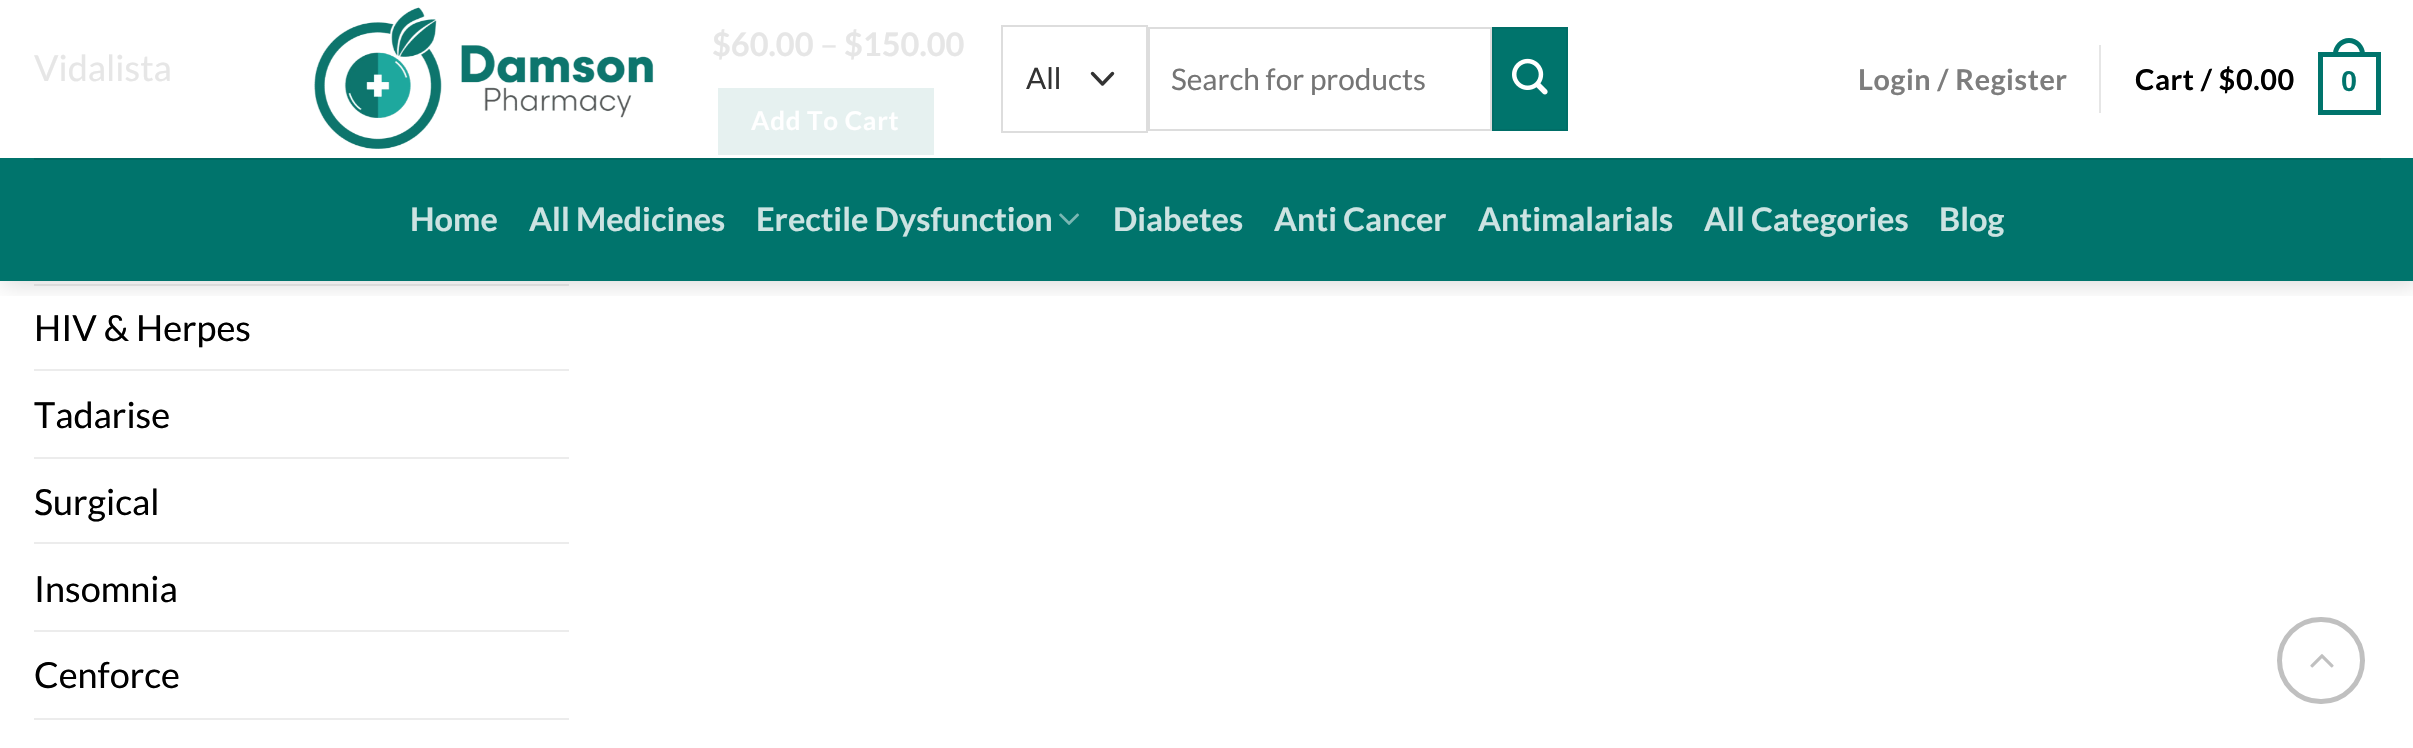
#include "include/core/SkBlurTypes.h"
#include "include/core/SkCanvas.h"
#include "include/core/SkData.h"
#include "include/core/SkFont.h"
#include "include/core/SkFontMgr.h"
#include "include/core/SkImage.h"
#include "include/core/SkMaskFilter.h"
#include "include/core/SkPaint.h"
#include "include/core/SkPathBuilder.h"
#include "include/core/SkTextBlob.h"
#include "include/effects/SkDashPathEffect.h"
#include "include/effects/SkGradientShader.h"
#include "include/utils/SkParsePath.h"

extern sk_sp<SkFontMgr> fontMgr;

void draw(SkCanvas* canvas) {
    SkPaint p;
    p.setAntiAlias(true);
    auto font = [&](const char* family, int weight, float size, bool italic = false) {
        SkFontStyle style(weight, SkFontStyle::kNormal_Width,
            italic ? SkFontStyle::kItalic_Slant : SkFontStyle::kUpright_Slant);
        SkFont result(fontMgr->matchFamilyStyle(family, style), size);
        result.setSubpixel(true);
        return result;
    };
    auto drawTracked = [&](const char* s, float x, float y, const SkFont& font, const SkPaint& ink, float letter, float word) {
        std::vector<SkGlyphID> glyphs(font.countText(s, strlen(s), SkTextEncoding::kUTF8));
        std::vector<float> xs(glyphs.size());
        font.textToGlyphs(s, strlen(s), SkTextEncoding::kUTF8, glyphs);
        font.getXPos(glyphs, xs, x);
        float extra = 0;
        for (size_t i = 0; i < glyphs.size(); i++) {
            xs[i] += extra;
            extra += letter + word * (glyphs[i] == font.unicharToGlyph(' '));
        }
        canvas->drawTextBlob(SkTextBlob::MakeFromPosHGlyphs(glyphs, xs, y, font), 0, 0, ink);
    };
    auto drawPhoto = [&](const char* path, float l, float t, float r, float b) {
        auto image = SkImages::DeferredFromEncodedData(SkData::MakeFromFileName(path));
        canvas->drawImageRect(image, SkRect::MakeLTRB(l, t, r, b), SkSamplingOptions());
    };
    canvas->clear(0xFFFFFFFF);
    auto font1 = font("Lato", 400, 36);
    p.setColor(0xFFE6E6E6);
    canvas->drawString("Vidalista", 34, 81, font1, p);
    p.setColor(0xFFECECEC);
    canvas->drawRect(SkRect::MakeLTRB(34, 284, 569, 286), p);
    p.setColor(0xFF000000);
    canvas->drawString("HIV & Herpes", 34, 341, font1, p);
    p.setColor(0xFFECECEC);
    canvas->drawRect(SkRect::MakeLTRB(34, 369, 569, 371), p);
    p.setColor(0xFF000000);
    canvas->drawString("Tadarise", 34, 428, font1, p);
    p.setColor(0xFFECECEC);
    canvas->drawRect(SkRect::MakeLTRB(34, 457, 569, 459), p);
    p.setColor(0xFF000000);
    canvas->drawString("Surgical", 34, 515, font1, p);
    p.setColor(0xFFECECEC);
    canvas->drawRect(SkRect::MakeLTRB(34, 542, 569, 544), p);
    p.setColor(0xFF000000);
    canvas->drawString("Insomnia", 34, 602, font1, p);
    p.setColor(0xFFECECEC);
    canvas->drawRect(SkRect::MakeLTRB(34, 630, 569, 632), p);
    p.setColor(0xFF000000);
    canvas->drawString("Cenforce", 34, 688, font1, p);
    p.setColor(0xFFECECEC);
    canvas->drawRect(SkRect::MakeLTRB(34, 718, 569, 720), p);
    auto font2 = font("Lato", 700, 32.5f);
    p.setColor(0xFFE6E6E6);
    canvas->drawString("$60.00", 712, 56, font2, p);
    auto font3 = font("Lato", 400, 32.5f);
    canvas->drawString("–", 820, 56, font3, p);
    canvas->drawString("$150.00", 844, 56, font2, p);
    p.setColor(0xFFE6F1F0);
    canvas->drawRect(SkRect::MakeLTRB(719, 89, 933, 154), p);
    p.setStyle(SkPaint::kStroke_Style);
    p.setStrokeWidth(2);
    canvas->drawRect(SkRect::MakeLTRB(719, 89, 933, 154), p);
    auto font4 = font("Lato", 700, 26);
    p.setStyle(SkPaint::kFill_Style);
    p.setColor(0xFFFFFFFF);
    drawTracked("Add To Cart", 751, 130, font4, p, 0.75f, 0);
    canvas->save();
    canvas->clipRect(SkRect::MakeLTRB(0, 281, 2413, 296));
    p.setColor(0x26000000);
    p.setMaskFilter(SkMaskFilter::MakeBlur(kNormal_SkBlurStyle, 11));
    canvas->drawRect(SkRect::MakeLTRB(2, 2, 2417, 284), p);
    p.setMaskFilter(nullptr);
    canvas->restore();
    drawPhoto("media/1.png", 314, 7, 654, 149);
    p.setStyle(SkPaint::kStroke_Style);
    p.setStrokeWidth(3.4f);
    p.setStrokeCap(SkPaint::kRound_Cap);
    p.setStrokeJoin(SkPaint::kRound_Join);
    p.setColor(0xFF333333);
    canvas->drawPath(SkPathBuilder().moveTo(1092.5f, 73.5f).lineTo(1102.5f, 84).lineTo(1112.5f, 73.5f).detach(), p);
    p.setStrokeWidth(2);
    p.setStrokeCap(SkPaint::kButt_Cap);
    p.setStrokeJoin(SkPaint::kMiter_Join);
    p.setColor(0xFFDDDDDD);
    canvas->drawRect(SkRect::MakeLTRB(1002, 26, 1147, 132), p);
    auto font5 = font("Lato", 400, 29.75f);
    p.setStyle(SkPaint::kFill_Style);
    p.setColor(0xFF333333);
    canvas->drawString("All", 1026, 89, font5, p);
    p.setStyle(SkPaint::kStroke_Style);
    p.setColor(0xFFDDDDDD);
    canvas->drawRect(SkRect::MakeLTRB(1149, 28, 1491, 130), p);
    p.setStyle(SkPaint::kFill_Style);
    p.setColor(0xFF757575);
    canvas->drawString("Search for products", 1171, 90, font5, p);
    p.setColor(0xFF00746C);
    canvas->drawRect(SkRect::MakeLTRB(1493, 28, 1567, 130), p);
    p.setStyle(SkPaint::kStroke_Style);
    p.setColor(0xFF006E67);
    canvas->drawRect(SkRect::MakeLTRB(1493, 28, 1567, 130), p);
    drawPhoto("media/2.png", 1512, 58, 1548, 95);
    auto font6 = font("Lato", 700, 28.75f);
    p.setStyle(SkPaint::kFill_Style);
    p.setColor(0xFF7D7D7D);
    drawTracked("Login / Register", 1858, 90, font6, p, 0.6f, 0);
    p.setColor(0xFFE6E6E6);
    canvas->drawRect(SkRect::MakeLTRB(2099, 45, 2101, 113), p);
    p.setColor(0xFF000000);
    drawTracked("Cart / $0.00", 2135, 90, font6, p, 0.6f, 0);
    p.setStyle(SkPaint::kStroke_Style);
    p.setStrokeWidth(5);
    p.setColor(0xFF00746C);
    canvas->drawRect(SkRect::MakeLTRB(2320.5f, 54.5f, 2378.5f, 112.5f), p);
    p.setStyle(SkPaint::kFill_Style);
    canvas->drawPath(SkPathBuilder(SkPathFillType::kEvenOdd).moveTo(2349, 38).cubicTo(2357.5f, 38, 2365, 45.5f, 2365, 54).lineTo(2365, 56).lineTo(2333, 56).lineTo(2333, 54).cubicTo(2333, 45.5f, 2340.5f, 38, 2349, 38).close().moveTo(2349, 43).cubicTo(2355, 43, 2360, 48, 2360, 54).lineTo(2360, 56).lineTo(2338, 56).lineTo(2338, 54).cubicTo(2338, 48, 2343, 43, 2349, 43).close().detach(), p);
    auto font7 = font("Liberation Sans", 700, 28.75f);
    drawTracked("0", 2341, 91, font7, p, 0.6f, 0);
    canvas->drawRect(SkRect::MakeLTRB(0, 158, 2413, 281), p);
    p.setColor(0xFF006861);
    canvas->drawRect(SkRect::MakeLTRB(34, 158, 2381, 160), p);
    p.setColor(0xFFCCE3E2);
    {
        const struct { const char* s; float x, y; } items[] = {
            {"Home", 410, 231},
            {"All Medicines", 529, 231},
            {"Erectile Dysfunction", 756, 231},
        };
        for (auto [s, x, y] : items) {
            canvas->drawString(s, x, y, font2, p);
        }
    }
    drawPhoto("media/3.png", 1059, 213, 1079, 225);
    {
        const struct { const char* s; float x, y; } items[] = {
            {"Diabetes", 1113, 231},
            {"Anti Cancer", 1274, 231},
            {"Antimalarials", 1478, 231},
            {"All Categories", 1704, 231},
            {"Blog", 1939, 231},
        };
        for (auto [s, x, y] : items) {
            canvas->drawString(s, x, y, font2, p);
        }
    }
    p.setStyle(SkPaint::kStroke_Style);
    p.setColor(0xFFC0C0C0);
    canvas->drawRoundRect(SkRect::MakeLTRB(2279.5f, 619.5f, 2362.5f, 701.5f), 41, 41, p);
    drawPhoto("media/4.png", 2310, 654, 2334, 668);
}
